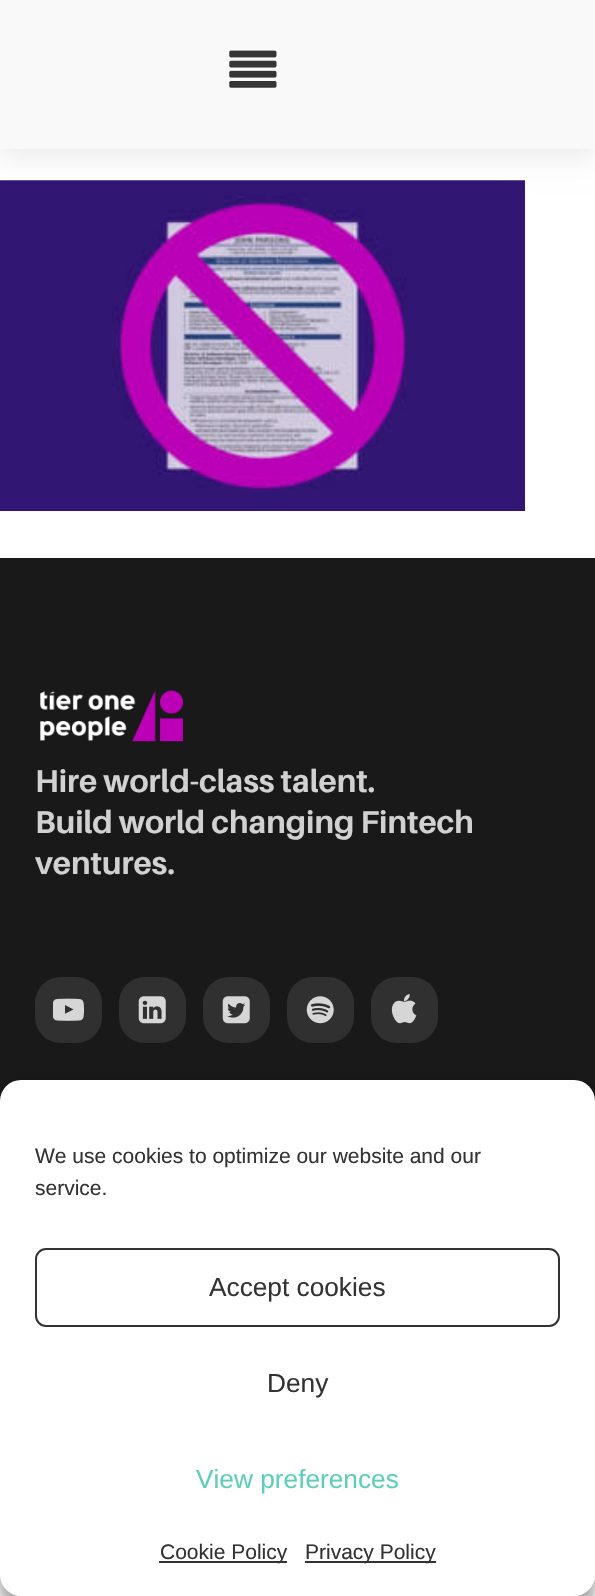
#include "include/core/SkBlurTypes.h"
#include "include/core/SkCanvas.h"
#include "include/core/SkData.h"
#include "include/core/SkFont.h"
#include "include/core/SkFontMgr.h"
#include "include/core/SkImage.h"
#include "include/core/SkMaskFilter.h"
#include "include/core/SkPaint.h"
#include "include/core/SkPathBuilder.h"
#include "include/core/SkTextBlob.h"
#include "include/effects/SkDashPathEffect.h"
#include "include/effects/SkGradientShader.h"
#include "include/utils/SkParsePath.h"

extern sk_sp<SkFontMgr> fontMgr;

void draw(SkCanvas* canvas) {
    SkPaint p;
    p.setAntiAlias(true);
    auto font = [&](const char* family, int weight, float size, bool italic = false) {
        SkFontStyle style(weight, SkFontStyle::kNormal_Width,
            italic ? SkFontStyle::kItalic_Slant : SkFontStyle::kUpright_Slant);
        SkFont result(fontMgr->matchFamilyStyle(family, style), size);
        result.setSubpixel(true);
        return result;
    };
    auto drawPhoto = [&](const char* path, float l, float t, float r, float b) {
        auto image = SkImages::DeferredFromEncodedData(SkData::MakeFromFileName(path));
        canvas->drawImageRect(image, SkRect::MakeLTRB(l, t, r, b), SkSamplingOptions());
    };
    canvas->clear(0xFFFFFFFF);
    drawPhoto("media/2.png", 0, 180, 525, 511);
    p.setColor(0x14000000);
    p.setMaskFilter(SkMaskFilter::MakeBlur(kNormal_SkBlurStyle, 13));
    canvas->drawRect(SkRect::MakeLTRB(0, 9, 595, 158), p);
    p.setMaskFilter(nullptr);
    p.setColor(0xFFF9F9F9);
    canvas->drawRect(SkRect::MakeLTRB(0, 0, 595, 149), p);
    drawPhoto("media/1.png", 229, 50, 277, 88);
    p.setColor(0xFF191919);
    canvas->drawRect(SkRect::MakeLTRB(0, 558, 595, 1101), p);
    drawPhoto("media/3.png", 40, 690, 183, 742);
    auto font1 = font("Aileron", 700, 31.5f);
    p.setColor(0xFFD1D1D1);
    {
        const struct { const char* s; float x, y; } items[] = {
            {"Hire world-class talent.", 35, 792},
            {"Build world changing Fintech", 35, 833},
            {"ventures.", 35, 874},
        };
        for (auto [s, x, y] : items) {
            canvas->drawString(s, x, y, font1, p);
        }
    }
    p.setColor(0xFF303030);
    canvas->drawRoundRect(SkRect::MakeLTRB(35, 977, 102, 1043), 26, 26, p);
    drawPhoto("media/4.png", 53, 998, 84, 1021);
    canvas->drawRoundRect(SkRect::MakeLTRB(119, 977, 186, 1043), 26, 26, p);
    drawPhoto("media/5.png", 138, 996, 166, 1024);
    canvas->drawRoundRect(SkRect::MakeLTRB(203, 977, 270, 1043), 26, 26, p);
    drawPhoto("media/6.png", 222, 996, 250, 1024);
    canvas->drawRoundRect(SkRect::MakeLTRB(287, 977, 354, 1043), 26, 26, p);
    drawPhoto("media/7.png", 306, 996, 334, 1024);
    canvas->drawRoundRect(SkRect::MakeLTRB(371, 977, 438, 1043), 26, 26, p);
    drawPhoto("media/8.png", 391, 994, 417, 1024);
    p.setColor(0x3B000000);
    p.setMaskFilter(SkMaskFilter::MakeBlur(kNormal_SkBlurStyle, 5));
    canvas->drawRoundRect(SkRect::MakeLTRB(0, 1090, 595, 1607), 21, 21, p);
    p.setMaskFilter(nullptr);
    p.setColor(0x30000000);
    p.setMaskFilter(SkMaskFilter::MakeBlur(kNormal_SkBlurStyle, 17.5f));
    canvas->drawRoundRect(SkRect::MakeLTRB(0, 1097, 595, 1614), 21, 21, p);
    p.setMaskFilter(nullptr);
    p.setColor(0xFFFFFFFF);
    canvas->drawRoundRect(SkRect::MakeLTRB(0, 1080, 595, 1596), 21, 21, p);
    auto font2 = font("Liberation Sans", 400, 21);
    p.setColor(0xFF333333);
    canvas->drawString("We use cookies to optimize our website and our", 35, 1163, font2, p);
    canvas->drawString("service.", 35, 1195, font2, p);
    p.setStyle(SkPaint::kStroke_Style);
    p.setStrokeWidth(2);
    canvas->drawRoundRect(SkRect::MakeLTRB(36, 1249, 559, 1326), 10, 10, p);
    auto font3 = font("Liberation Sans", 400, 26.25f);
    p.setStyle(SkPaint::kFill_Style);
    canvas->drawString("Accept cookies", 209, 1296, font3, p);
    canvas->drawString("Deny", 267, 1392, font3, p);
    p.setColor(0xFF5CCEBB);
    canvas->drawString("View preferences", 196, 1488, font3, p);
    p.setColor(0xFF333333);
    canvas->drawRect(SkRect::MakeLTRB(159, 1561, 287, 1563), p);
    canvas->drawString("Cookie Policy", 160, 1559, font2, p);
    canvas->drawRect(SkRect::MakeLTRB(305, 1561, 436, 1563), p);
    canvas->drawString("Privacy Policy", 305, 1559, font2, p);
}
